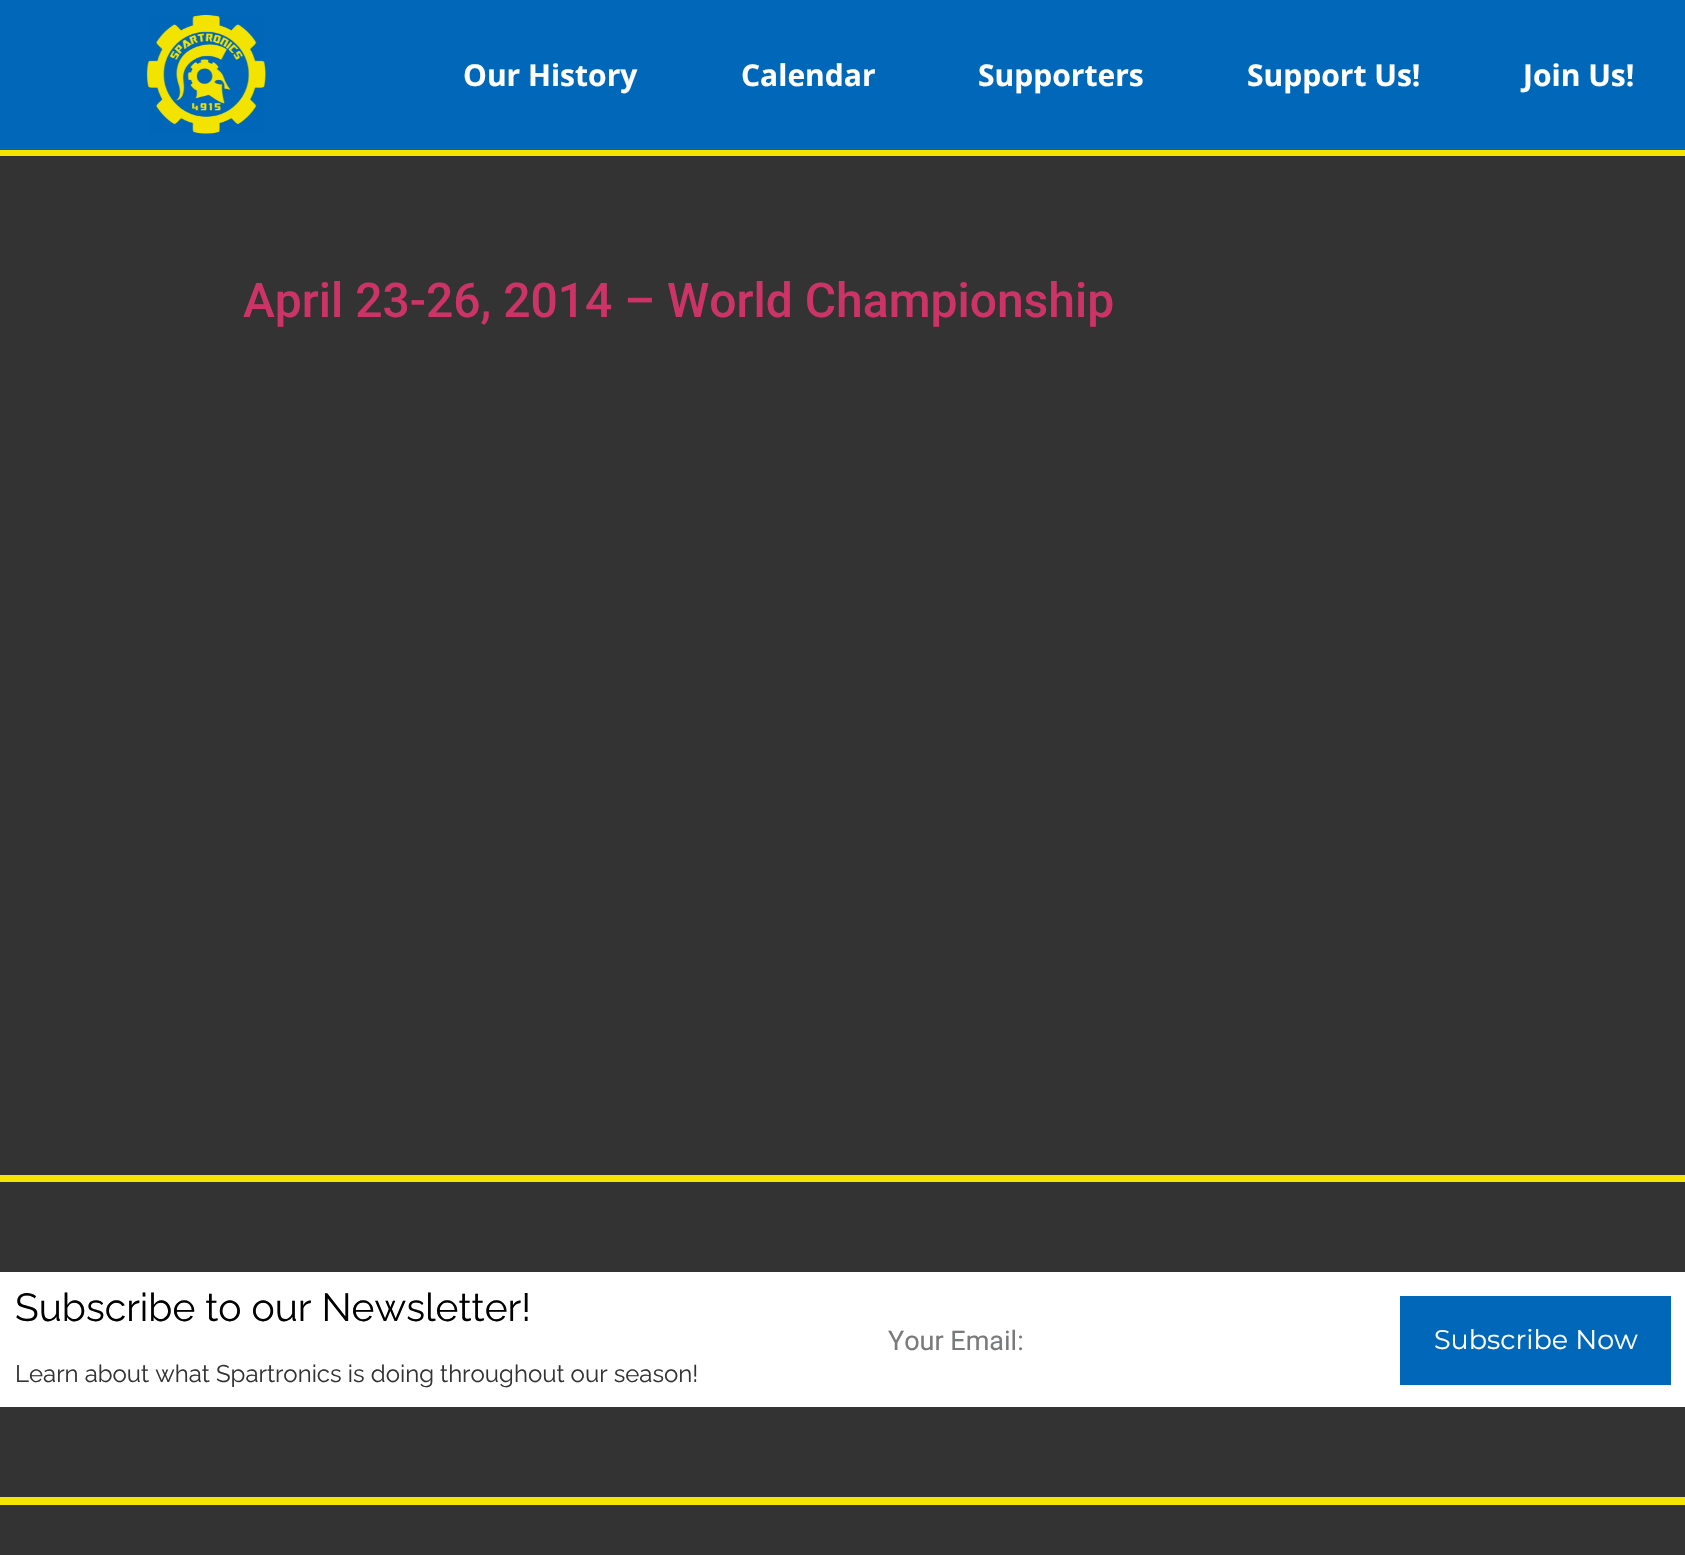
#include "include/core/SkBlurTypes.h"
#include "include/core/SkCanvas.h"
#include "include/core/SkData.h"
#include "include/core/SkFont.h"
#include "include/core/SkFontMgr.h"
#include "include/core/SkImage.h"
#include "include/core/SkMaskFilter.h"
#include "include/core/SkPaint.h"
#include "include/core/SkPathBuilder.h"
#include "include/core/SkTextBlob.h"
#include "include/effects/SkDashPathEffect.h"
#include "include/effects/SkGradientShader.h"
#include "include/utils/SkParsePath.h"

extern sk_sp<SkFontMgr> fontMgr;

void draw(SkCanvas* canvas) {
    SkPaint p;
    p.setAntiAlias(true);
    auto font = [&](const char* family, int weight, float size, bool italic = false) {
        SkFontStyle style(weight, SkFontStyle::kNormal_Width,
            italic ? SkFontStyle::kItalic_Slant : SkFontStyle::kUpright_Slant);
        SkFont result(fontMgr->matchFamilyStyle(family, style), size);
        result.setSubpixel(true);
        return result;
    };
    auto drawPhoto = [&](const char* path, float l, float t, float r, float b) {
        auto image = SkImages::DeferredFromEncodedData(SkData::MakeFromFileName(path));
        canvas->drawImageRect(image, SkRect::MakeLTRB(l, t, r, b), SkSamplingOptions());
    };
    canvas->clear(0xFF333333);
    p.setColor(0xFF0067B9);
    canvas->drawRect(SkRect::MakeLTRB(0, 0, 1685, 150), p);
    p.setColor(0xFFF4E400);
    canvas->drawRect(SkRect::MakeLTRB(0, 150, 1685, 156), p);
    drawPhoto("media/1.png", 146, 15, 266, 134);
    auto font1 = font("Open Sans", 700, 30);
    p.setColor(0xFFFFFFFF);
    {
        const struct { const char* s; float x, y; } items[] = {
            {"Our History", 463, 86},
            {"Calendar", 741, 86},
            {"Supporters", 978, 86},
            {"Support Us!", 1247, 86},
            {"Join Us!", 1523, 86},
        };
        for (auto [s, x, y] : items) {
            canvas->drawString(s, x, y, font1, p);
        }
    }
    auto font2 = font("Roboto", 500, 48);
    p.setColor(0xFFCC3366);
    canvas->drawString("April 23-26, 2014 – World Championship", 243, 317, font2, p);
    p.setColor(0xFFF4E400);
    canvas->drawRect(SkRect::MakeLTRB(0, 1175, 1685, 1182), p);
    p.setColor(0xFFFFFFFF);
    canvas->drawRect(SkRect::MakeLTRB(0, 1272, 1685, 1407), p);
    auto font3 = font("Raleway", 400, 39);
    p.setColor(0xFF000000);
    canvas->drawString("Subscribe to our Newsletter!", 15, 1321, font3, p);
    auto font4 = font("Raleway", 400, 24);
    p.setColor(0xFF333333);
    canvas->drawString("Learn about what Spartronics is doing throughout our season!", 15, 1382, font4, p);
    auto font5 = font("Roboto", 400, 27);
    p.setColor(0xFF797A7C);
    canvas->drawString("Your Email:", 888, 1350, font5, p);
    p.setColor(0xFF0067B9);
    canvas->drawRect(SkRect::MakeLTRB(1400, 1296, 1671, 1385), p);
    auto font6 = font("Montserrat", 400, 27);
    p.setColor(0xFFFFFFFF);
    canvas->drawString("Subscribe Now", 1434, 1349, font6, p);
    p.setColor(0xFFF4E400);
    canvas->drawRect(SkRect::MakeLTRB(0, 1497, 1685, 1505), p);
}
